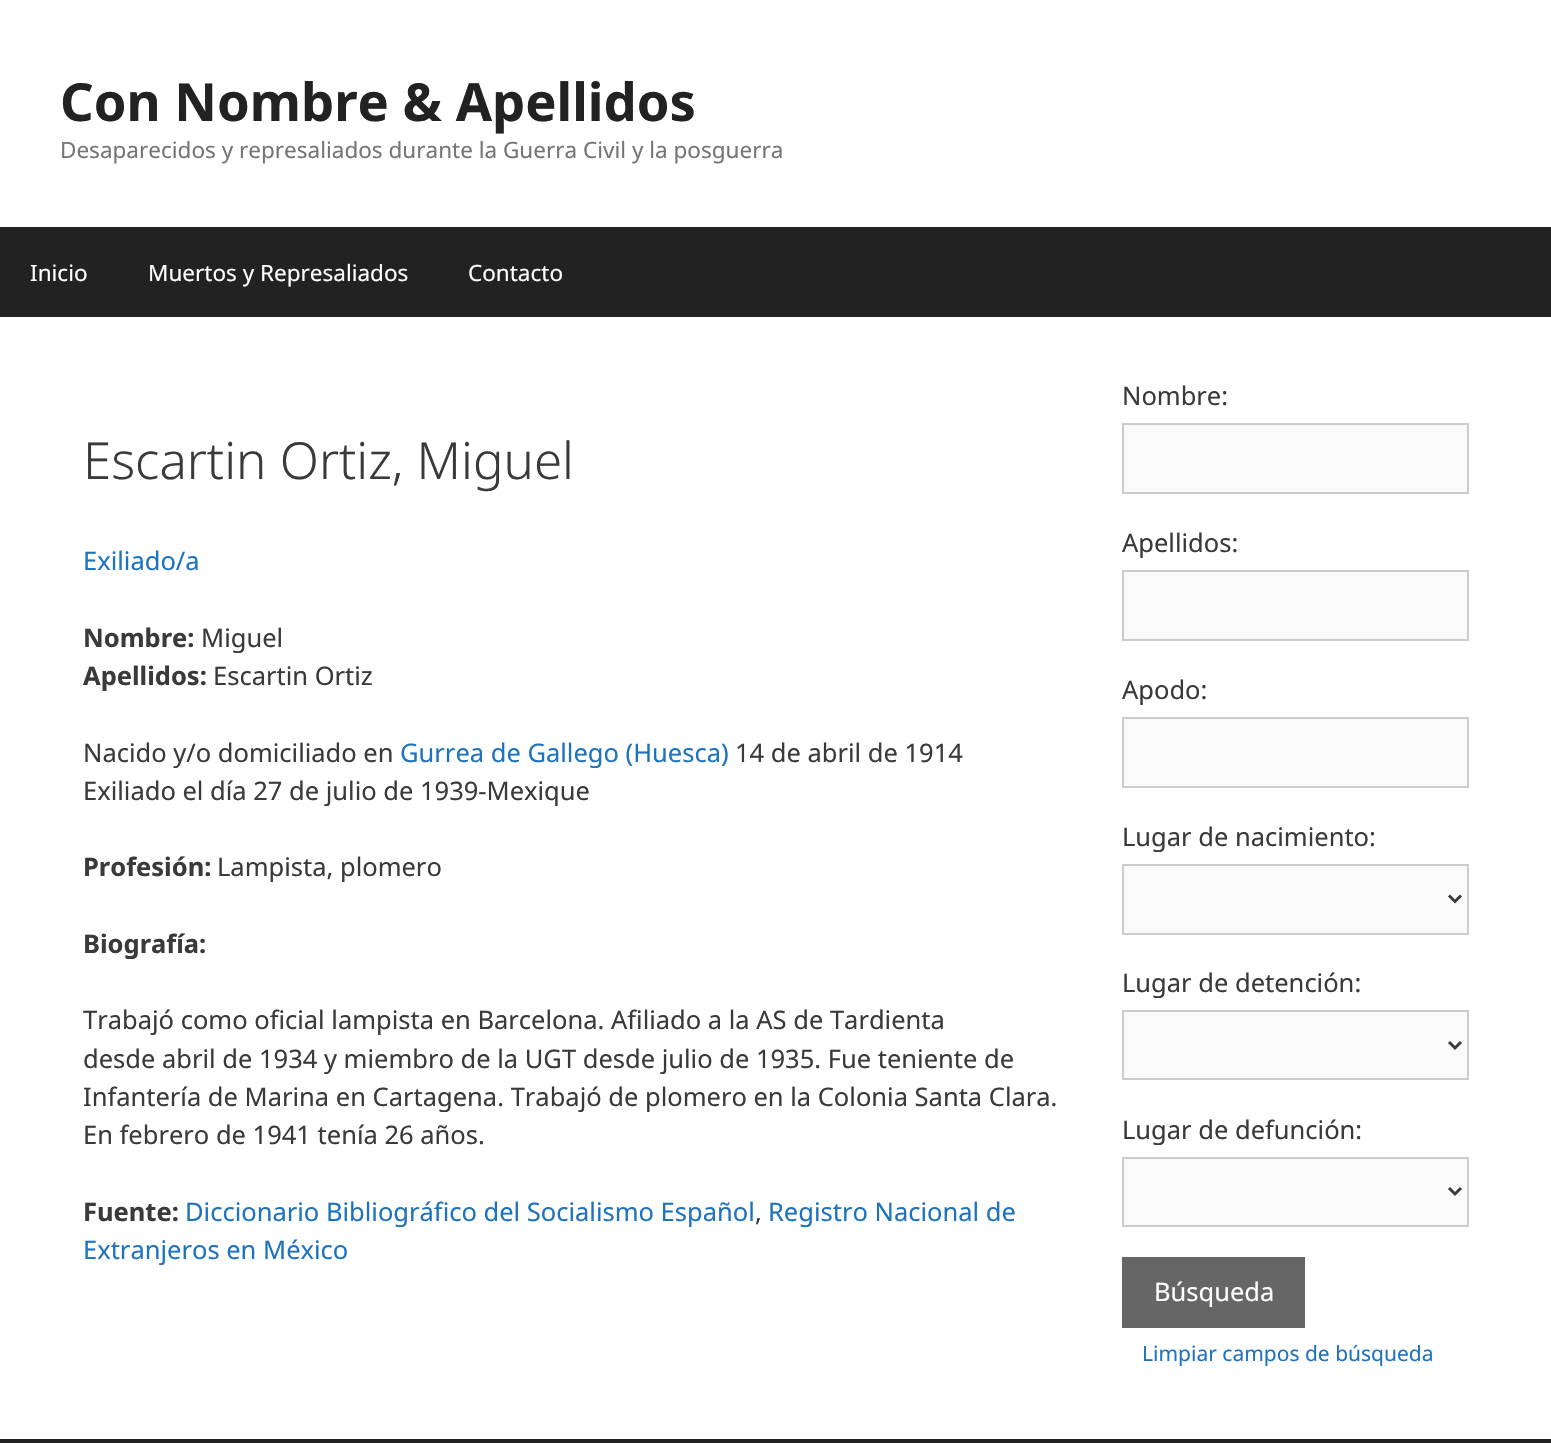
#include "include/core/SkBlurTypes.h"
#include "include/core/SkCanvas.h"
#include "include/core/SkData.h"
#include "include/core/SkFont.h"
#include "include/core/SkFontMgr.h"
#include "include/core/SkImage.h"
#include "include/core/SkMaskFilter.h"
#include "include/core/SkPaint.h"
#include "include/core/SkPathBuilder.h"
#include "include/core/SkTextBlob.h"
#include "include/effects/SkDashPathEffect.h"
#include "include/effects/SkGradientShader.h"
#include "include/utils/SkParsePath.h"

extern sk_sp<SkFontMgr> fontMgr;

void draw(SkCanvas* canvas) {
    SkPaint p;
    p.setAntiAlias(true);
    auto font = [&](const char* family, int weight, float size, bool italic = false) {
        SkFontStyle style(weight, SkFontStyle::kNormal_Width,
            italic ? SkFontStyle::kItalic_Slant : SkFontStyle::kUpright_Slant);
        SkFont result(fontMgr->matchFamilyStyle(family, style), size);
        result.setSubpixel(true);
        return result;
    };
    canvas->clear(0xFFFFFFFF);
    auto font1 = font("Noto Sans", 700, 52.5f);
    p.setColor(0xFF222222);
    canvas->drawString("Con Nombre & Apellidos", 60, 121, font1, p);
    auto font2 = font("Noto Sans", 400, 22.5f);
    p.setColor(0xFF757575);
    canvas->drawString("Desaparecidos y represaliados durante la Guerra Civil y la posguerra", 60, 158, font2, p);
    p.setColor(0xFF222222);
    canvas->drawRect(SkRect::MakeLTRB(0, 227, 1551, 317), p);
    p.setColor(0xFFFFFFFF);
    {
        const struct { const char* s; float x, y; } items[] = {
            {"Inicio", 30, 281},
            {"Muertos y Represaliados", 148, 281},
            {"Contacto", 468, 281},
        };
        for (auto [s, x, y] : items) {
            canvas->drawString(s, x, y, font2, p);
        }
    }
    auto font3 = font("Noto Sans", 300, 51);
    p.setColor(0xFF3A3A3A);
    canvas->drawString("Escartin Ortiz, Miguel", 83, 479, font3, p);
    auto font4 = font("Noto Sans", 400, 25.5f);
    p.setColor(0xFF1E73BE);
    canvas->drawString("Exiliado/a", 83, 570, font4, p);
    auto font5 = font("Noto Sans", 700, 25.5f);
    p.setColor(0xFF3A3A3A);
    canvas->drawString("Nombre:", 83, 647, font5, p);
    canvas->drawString("Miguel", 201, 647, font4, p);
    canvas->drawString("Apellidos:", 83, 685, font5, p);
    canvas->drawString("Escartin Ortiz", 213, 685, font4, p);
    canvas->drawString("Nacido y/o domiciliado en", 83, 762, font4, p);
    p.setColor(0xFF1E73BE);
    canvas->drawString("Gurrea de Gallego (Huesca)", 400, 762, font4, p);
    p.setColor(0xFF3A3A3A);
    canvas->drawString("14 de abril de 1914", 735, 762, font4, p);
    canvas->drawString("Exiliado el día 27 de julio de 1939-Mexique", 83, 800, font4, p);
    canvas->drawString("Profesión:", 83, 876, font5, p);
    canvas->drawString("Lampista, plomero", 217, 876, font4, p);
    canvas->drawString("Biografía:", 83, 953, font5, p);
    {
        const struct { const char* s; float x, y; } items[] = {
            {"Trabajó como oficial lampista en Barcelona. Afiliado a la AS de Tardienta", 83, 1029},
            {"desde abril de 1934 y miembro de la UGT desde julio de 1935. Fue teniente de", 83, 1068},
            {"Infantería de Marina en Cartagena. Trabajó de plomero en la Colonia Santa Clara.", 83, 1106},
            {"En febrero de 1941 tenía 26 años.", 83, 1144},
        };
        for (auto [s, x, y] : items) {
            canvas->drawString(s, x, y, font4, p);
        }
    }
    canvas->drawString("Fuente:", 83, 1221, font5, p);
    p.setColor(0xFF1E73BE);
    canvas->drawString("Diccionario Bibliográfico del Socialismo Español", 185, 1221, font4, p);
    p.setColor(0xFF3A3A3A);
    canvas->drawString(",", 755, 1221, font4, p);
    p.setColor(0xFF1E73BE);
    canvas->drawString("Registro Nacional de", 768, 1221, font4, p);
    canvas->drawString("Extranjeros en México", 83, 1259, font4, p);
    p.setColor(0xFF3A3A3A);
    canvas->drawString("Nombre:", 1122, 405, font4, p);
    p.setColor(0xFFFAFAFA);
    canvas->drawRect(SkRect::MakeLTRB(1123, 424, 1468, 493), p);
    p.setStyle(SkPaint::kStroke_Style);
    p.setStrokeWidth(2);
    p.setColor(0xFFCCCCCC);
    canvas->drawRect(SkRect::MakeLTRB(1123, 424, 1468, 493), p);
    p.setStyle(SkPaint::kFill_Style);
    p.setColor(0xFF3A3A3A);
    canvas->drawString("Apellidos:", 1122, 552, font4, p);
    p.setColor(0xFFFAFAFA);
    canvas->drawRect(SkRect::MakeLTRB(1123, 571, 1468, 640), p);
    p.setStyle(SkPaint::kStroke_Style);
    p.setColor(0xFFCCCCCC);
    canvas->drawRect(SkRect::MakeLTRB(1123, 571, 1468, 640), p);
    p.setStyle(SkPaint::kFill_Style);
    p.setColor(0xFF3A3A3A);
    canvas->drawString("Apodo:", 1122, 699, font4, p);
    p.setColor(0xFFFAFAFA);
    canvas->drawRect(SkRect::MakeLTRB(1123, 718, 1468, 787), p);
    p.setStyle(SkPaint::kStroke_Style);
    p.setColor(0xFFCCCCCC);
    canvas->drawRect(SkRect::MakeLTRB(1123, 718, 1468, 787), p);
    p.setStyle(SkPaint::kFill_Style);
    p.setColor(0xFF3A3A3A);
    canvas->drawString("Lugar de nacimiento:", 1122, 846, font4, p);
    p.setColor(0xFFFAFAFA);
    canvas->drawRect(SkRect::MakeLTRB(1123, 865, 1468, 934), p);
    p.setStyle(SkPaint::kStroke_Style);
    p.setColor(0xFFCCCCCC);
    canvas->drawRect(SkRect::MakeLTRB(1123, 865, 1468, 934), p);
    p.setStrokeWidth(3);
    p.setColor(0xFF3A3A3A);
    canvas->drawPath(SkPathBuilder().moveTo(1449, 895.5f).lineTo(1455, 901.5f).lineTo(1461, 895.5f).detach(), p);
    p.setStyle(SkPaint::kFill_Style);
    canvas->drawString("Lugar de detención:", 1122, 992, font4, p);
    p.setColor(0xFFFAFAFA);
    canvas->drawRect(SkRect::MakeLTRB(1123, 1011, 1468, 1079), p);
    p.setStyle(SkPaint::kStroke_Style);
    p.setStrokeWidth(2);
    p.setColor(0xFFCCCCCC);
    canvas->drawRect(SkRect::MakeLTRB(1123, 1011, 1468, 1079), p);
    p.setStrokeWidth(3);
    p.setColor(0xFF3A3A3A);
    canvas->drawPath(SkPathBuilder().moveTo(1449, 1042).lineTo(1455, 1048).lineTo(1461, 1042).detach(), p);
    p.setStyle(SkPaint::kFill_Style);
    canvas->drawString("Lugar de defunción:", 1122, 1139, font4, p);
    p.setColor(0xFFFAFAFA);
    canvas->drawRect(SkRect::MakeLTRB(1123, 1158, 1468, 1226), p);
    p.setStyle(SkPaint::kStroke_Style);
    p.setStrokeWidth(2);
    p.setColor(0xFFCCCCCC);
    canvas->drawRect(SkRect::MakeLTRB(1123, 1158, 1468, 1226), p);
    p.setStrokeWidth(3);
    p.setColor(0xFF3A3A3A);
    canvas->drawPath(SkPathBuilder().moveTo(1449, 1188).lineTo(1455, 1194).lineTo(1461, 1188).detach(), p);
    p.setStyle(SkPaint::kFill_Style);
    p.setColor(0xFF666666);
    canvas->drawRect(SkRect::MakeLTRB(1122, 1257, 1305, 1328), p);
    p.setColor(0xFFFFFFFF);
    canvas->drawString("Búsqueda", 1154, 1301, font4, p);
    auto font6 = font("Noto Sans", 400, 21);
    p.setColor(0xFF1E73BE);
    canvas->drawString("Limpiar campos de búsqueda", 1142, 1361, font6, p);
    p.setColor(0xFF222222);
    canvas->drawRect(SkRect::MakeLTRB(0, 1439, 1551, 1443), p);
}
